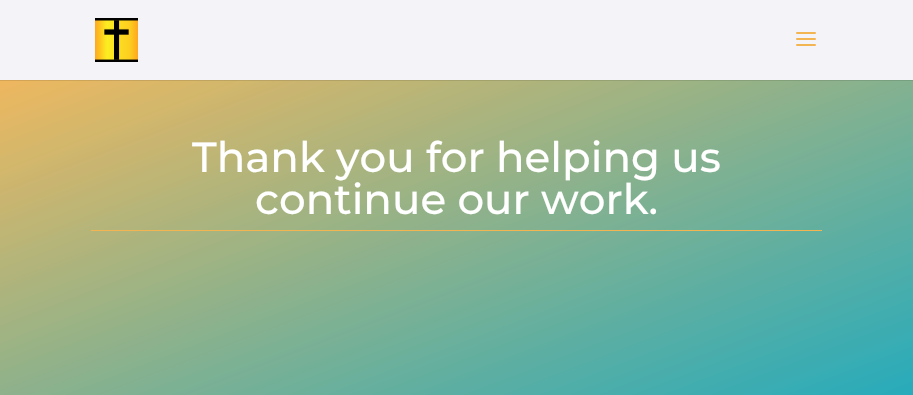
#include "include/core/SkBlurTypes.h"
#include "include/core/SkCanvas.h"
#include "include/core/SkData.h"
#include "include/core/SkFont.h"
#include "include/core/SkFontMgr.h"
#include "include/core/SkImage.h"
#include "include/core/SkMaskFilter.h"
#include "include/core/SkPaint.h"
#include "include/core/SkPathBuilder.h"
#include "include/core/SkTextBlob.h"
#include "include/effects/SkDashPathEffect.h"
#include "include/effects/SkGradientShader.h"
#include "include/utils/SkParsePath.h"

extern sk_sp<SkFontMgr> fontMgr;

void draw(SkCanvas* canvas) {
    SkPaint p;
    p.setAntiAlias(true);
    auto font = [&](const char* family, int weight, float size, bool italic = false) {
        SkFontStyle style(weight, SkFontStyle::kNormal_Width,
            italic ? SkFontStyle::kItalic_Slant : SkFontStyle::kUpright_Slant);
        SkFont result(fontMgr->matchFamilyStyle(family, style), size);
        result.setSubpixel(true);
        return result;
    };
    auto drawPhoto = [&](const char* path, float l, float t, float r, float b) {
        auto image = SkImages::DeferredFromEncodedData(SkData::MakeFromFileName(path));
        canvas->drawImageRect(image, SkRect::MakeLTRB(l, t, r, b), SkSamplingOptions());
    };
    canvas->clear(0xFFFFFFFF);
    {
        const SkColor colors[] = {0xFFF6C67C, 0xFF57C0D0};
        const float stops[] = {0, 1};
        const SkPoint ends[] = {{337, -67}, {576, 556}};
        p.setShader(SkGradientShader::MakeLinear(ends, colors, stops, 2, SkTileMode::kClamp));
        p.setAlpha(255);
    }
    canvas->drawRect(SkRect::MakeLTRB(0, 80, 913, 395), p);
    {
        const SkColor colors[] = {0xC2F3B452, 0xA8009FB7};
        const float stops[] = {0, 1};
        const SkPoint ends[] = {{337, -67}, {576, 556}};
        p.setShader(SkGradientShader::MakeLinear(ends, colors, stops, 2, SkTileMode::kClamp));
        p.setAlpha(255);
    }
    canvas->drawRect(SkRect::MakeLTRB(0, 80, 913, 395), p);
    p.setShader(nullptr);
    p.setColor(0x1A000000);
    canvas->drawRect(SkRect::MakeLTRB(0, 80, 913, 81), p);
    p.setColor(0xFFF4F4F8);
    canvas->drawRect(SkRect::MakeLTRB(0, 0, 913, 80), p);
    drawPhoto("media/1.png", 95, 18, 138, 62);
    drawPhoto("media/2.png", 796, 32, 816, 46);
    auto font1 = font("Montserrat", 500, 42);
    p.setColor(0xFFFFFFFF);
    canvas->drawString("Thank you for helping us", 192, 172, font1, p);
    canvas->drawString("continue our work.", 255, 214, font1, p);
    p.setColor(0xFFF3B452);
    canvas->drawRect(SkRect::MakeLTRB(91, 230, 822, 231), p);
}
